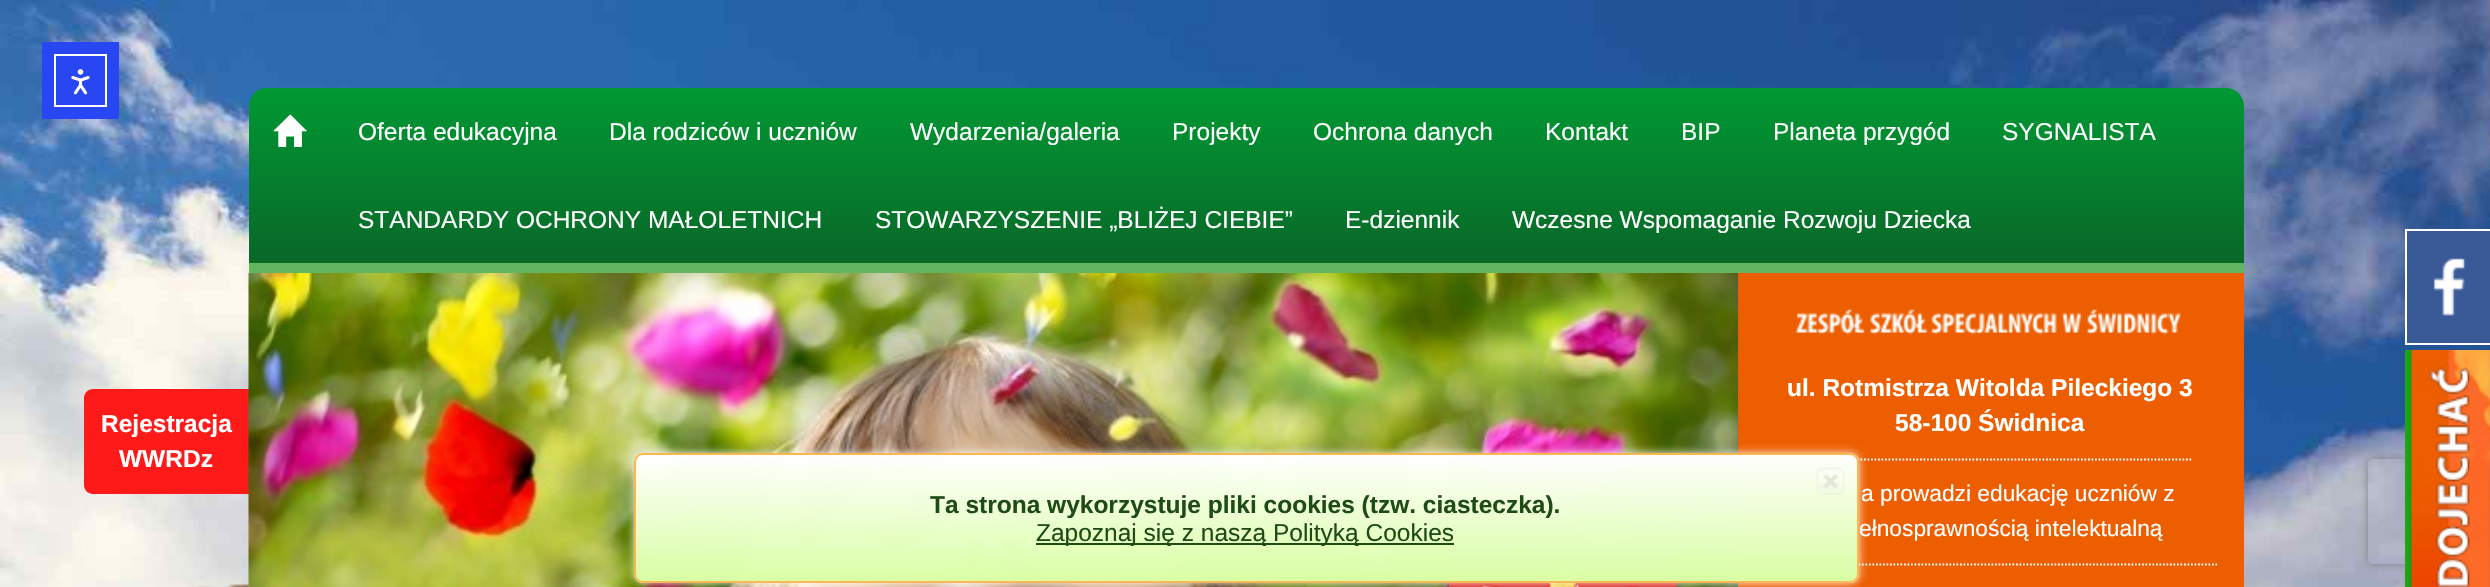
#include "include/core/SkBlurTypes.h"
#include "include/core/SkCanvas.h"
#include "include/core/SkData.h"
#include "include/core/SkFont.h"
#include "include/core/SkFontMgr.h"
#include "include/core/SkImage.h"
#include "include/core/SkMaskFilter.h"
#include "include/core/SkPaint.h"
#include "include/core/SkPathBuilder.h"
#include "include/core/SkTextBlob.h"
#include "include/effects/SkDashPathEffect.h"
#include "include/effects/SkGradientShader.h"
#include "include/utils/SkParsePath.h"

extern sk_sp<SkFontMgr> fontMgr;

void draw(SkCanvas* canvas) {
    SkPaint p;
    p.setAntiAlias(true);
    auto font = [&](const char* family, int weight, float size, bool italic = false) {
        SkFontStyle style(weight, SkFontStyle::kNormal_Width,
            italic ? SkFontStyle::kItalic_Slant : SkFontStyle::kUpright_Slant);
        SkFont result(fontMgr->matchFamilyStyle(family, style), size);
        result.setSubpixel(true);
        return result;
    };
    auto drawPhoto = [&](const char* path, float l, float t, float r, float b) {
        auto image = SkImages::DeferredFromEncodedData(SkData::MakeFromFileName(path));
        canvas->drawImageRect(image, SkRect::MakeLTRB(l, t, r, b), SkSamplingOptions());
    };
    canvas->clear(0xFFFFFFFF);
    drawPhoto("media/1.png", 0, 0, 2490, 587);
    drawPhoto("media/2.png", 192, 584, 249, 587);
    p.setColor(0xFF2847F3);
    canvas->drawRect(SkRect::MakeLTRB(42, 42, 119, 119), p);
    p.setStyle(SkPaint::kStroke_Style);
    p.setStrokeWidth(2);
    p.setColor(0xFFFFFFFF);
    canvas->drawRect(SkRect::MakeLTRB(55, 55, 106, 106), p);
    drawPhoto("media/3.png", 71, 69, 90, 95);
    p.setStyle(SkPaint::kFill_Style);
    {
        const SkColor colors[] = {0xFF009933, 0xFF096728};
        const float stops[] = {0, 1};
        const SkPoint ends[] = {{1246, 87}, {1246, 263}};
        p.setShader(SkGradientShader::MakeLinear(ends, colors, stops, 2, SkTileMode::kClamp));
        p.setAlpha(255);
    }
    canvas->drawPath(SkPathBuilder().moveTo(267, 88).lineTo(2226, 88).cubicTo(2236, 88, 2244, 96, 2244, 106).lineTo(2244, 263).lineTo(249, 263).lineTo(249, 106).cubicTo(249, 96, 257, 88, 267, 88).close().detach(), p);
    p.setShader(nullptr);
    p.setColor(0xFF62B660);
    canvas->drawRect(SkRect::MakeLTRB(249, 263, 2244, 273), p);
    drawPhoto("media/4.png", 273, 114, 307, 147);
    auto font1 = font("Liberation Sans", 400, 24.5f);
    p.setColor(0xFFFFFFFF);
    {
        const struct { const char* s; float x, y; } items[] = {
            {"Oferta edukacyjna", 358, 140},
            {"Dla rodziców i uczniów", 609, 140},
            {"Wydarzenia/galeria", 910, 140},
            {"Projekty", 1172, 140},
            {"Ochrona danych", 1313, 140},
            {"Kontakt", 1545, 140},
            {"BIP", 1681, 140},
            {"Planeta przygód", 1773, 140},
            {"SYGNALISTA", 2002, 140},
            {"STANDARDY OCHRONY MAŁOLETNICH", 358, 228},
            {"STOWARZYSZENIE „BLIŻEJ CIEBIE”", 875, 228},
            {"E-dziennik", 1345, 228},
            {"Wczesne Wspomaganie Rozwoju Dziecka", 1512, 228},
        };
        for (auto [s, x, y] : items) {
            canvas->drawString(s, x, y, font1, p);
        }
    }
    {
        const struct { float l, t, r, b; SkColor color; } items[] = {
            {2407, 231, 2490, 343, 0xFF3A5A97},
            {2405, 229, 2490, 231, 0xFFFFFFFF},
            {2405, 343, 2490, 345, 0xFFFFFFFF},
            {2405, 229, 2407, 345, 0xFFFFFFFF},
        };
        for (auto [l, t, r, b, color] : items) {
            p.setColor(color);
            canvas->drawRect(SkRect::MakeLTRB(l, t, r, b), p);
        }
    }
    drawPhoto("media/5.png", 2433, 258, 2465, 316);
    p.setColor(0xFFFF1A1A);
    canvas->drawPath(SkPathBuilder().moveTo(93, 389).lineTo(249, 389).lineTo(249, 494).lineTo(93, 494).cubicTo(88, 494, 84, 490, 84, 485).lineTo(84, 398).cubicTo(84, 393, 88, 389, 93, 389).close().detach(), p);
    auto font2 = font("Liberation Sans", 700, 24.5f);
    p.setColor(0xFFFFFFFF);
    canvas->drawString("Rejestracja", 101, 432, font2, p);
    canvas->drawString("WWRDz", 119, 467, font2, p);
    drawPhoto("media/6.png", 248, 273, 1738, 587);
    drawPhoto("media/7.png", 1437, 542, 1689, 587);
    p.setColor(0xFFED5E01);
    canvas->drawRect(SkRect::MakeLTRB(1738, 273, 2244, 587), p);
    drawPhoto("media/8.png", 1795, 309, 1865, 335);
    drawPhoto("media/9.png", 1870, 309, 1928, 335);
    drawPhoto("media/10.png", 1931, 312, 2057, 335);
    drawPhoto("media/11.png", 2061, 312, 2082, 333);
    drawPhoto("media/12.png", 2087, 309, 2181, 335);
    p.setStyle(SkPaint::kStroke_Style);
    p.setStrokeWidth(1.8f);
    p.setColor(0xFFFFFFFF);
    p.setPathEffect(SkDashPathEffect::Make({{1.75f, 1.75f}}, 0));
    canvas->drawPath(SkPathBuilder().moveTo(1787, 459.5f).lineTo(2193, 459.5f).detach(), p);
    p.setPathEffect(nullptr);
    p.setStyle(SkPaint::kFill_Style);
    canvas->drawString("ul. Rotmistrza Witolda Pileckiego 3", 1787, 396, font2, p);
    canvas->drawString("58-100 Świdnica", 1895, 431, font2, p);
    p.setStyle(SkPaint::kStroke_Style);
    p.setPathEffect(SkDashPathEffect::Make({{1.75f, 1.75f}}, 0));
    canvas->drawPath(SkPathBuilder().moveTo(1764, 564.5f).lineTo(2217, 564.5f).detach(), p);
    p.setPathEffect(nullptr);
    auto font3 = font("Liberation Sans", 400, 22.75f);
    p.setStyle(SkPaint::kFill_Style);
    canvas->drawString("a prowadzi edukację uczniów z", 1861, 501, font3, p);
    canvas->drawString("ełnosprawnością intelektualną", 1859, 536, font3, p);
    canvas->save();
    canvas->clipPath(SkPathBuilder(SkPathFillType::kEvenOdd).moveTo(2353, 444).lineTo(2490, 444).lineTo(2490, 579).lineTo(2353, 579).close().moveTo(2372, 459).lineTo(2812, 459).cubicTo(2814, 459, 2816, 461, 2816, 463).lineTo(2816, 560).cubicTo(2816, 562, 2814, 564, 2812, 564).lineTo(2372, 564).cubicTo(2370, 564, 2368, 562, 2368, 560).lineTo(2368, 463).cubicTo(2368, 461, 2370, 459, 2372, 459).close().detach(), true);
    p.setColor(0xFF808080);
    p.setMaskFilter(SkMaskFilter::MakeBlur(kNormal_SkBlurStyle, 4.5f));
    canvas->drawRoundRect(SkRect::MakeLTRB(2368, 459, 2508, 564), 4, 4, p);
    p.setMaskFilter(nullptr);
    canvas->restore();
    drawPhoto("media/13.png", 2405, 350, 2490, 587);
    canvas->save();
    canvas->clipPath(SkPathBuilder(SkPathFillType::kEvenOdd).moveTo(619, 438).lineTo(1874, 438).lineTo(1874, 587).lineTo(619, 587).close().moveTo(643, 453).lineTo(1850, 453).cubicTo(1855, 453, 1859, 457, 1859, 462).lineTo(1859, 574).cubicTo(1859, 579, 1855, 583, 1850, 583).lineTo(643, 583).cubicTo(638, 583, 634, 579, 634, 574).lineTo(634, 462).cubicTo(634, 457, 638, 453, 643, 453).close().detach(), true);
    p.setColor(0xE6FFFFFF);
    p.setMaskFilter(SkMaskFilter::MakeBlur(kNormal_SkBlurStyle, 4.5f));
    canvas->drawRoundRect(SkRect::MakeLTRB(634, 453, 1859, 583), 9, 9, p);
    p.setMaskFilter(nullptr);
    canvas->restore();
    canvas->drawRoundRect(SkRect::MakeLTRB(634, 453, 1859, 583), 9, 9, p);
    canvas->save();
    canvas->clipPath(SkPathBuilder().moveTo(643, 453).lineTo(1850, 453).cubicTo(1855, 453, 1859, 457, 1859, 462).lineTo(1859, 574).cubicTo(1859, 579, 1855, 583, 1850, 583).lineTo(643, 583).cubicTo(638, 583, 634, 579, 634, 574).lineTo(634, 462).cubicTo(634, 457, 638, 453, 643, 453).close().detach(), true);
    {
        const SkColor colors[] = {0xE6D5FF9B, 0xE6FFFFFF};
        const float stops[] = {0, 1};
        const SkPoint ends[] = {{1246, 455}, {1246, 329}};
        p.setShader(SkGradientShader::MakeLinear(ends, colors, stops, 2, SkTileMode::kClamp));
        p.setAlpha(255);
    }
    canvas->drawRect(SkRect::MakeLTRB(634, 453, 1859, 455), p);
    {
        const SkColor colors[] = {0xE6D5FF9B, 0xE6FFFFFF};
        const float stops[] = {0, 1};
        const SkPoint ends[] = {{1246, 581}, {1246, 455}};
        p.setShader(SkGradientShader::MakeLinear(ends, colors, stops, 2, SkTileMode::kClamp));
        p.setAlpha(255);
    }
    canvas->drawRect(SkRect::MakeLTRB(634, 455, 1859, 581), p);
    {
        const SkColor colors[] = {0xE6D5FF9B, 0xE6FFFFFF};
        const float stops[] = {0, 1};
        const SkPoint ends[] = {{1246, 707}, {1246, 581}};
        p.setShader(SkGradientShader::MakeLinear(ends, colors, stops, 2, SkTileMode::kClamp));
        p.setAlpha(255);
    }
    canvas->drawRect(SkRect::MakeLTRB(634, 581, 1859, 583), p);
    canvas->restore();
    p.setStyle(SkPaint::kStroke_Style);
    p.setStrokeWidth(2);
    p.setShader(nullptr);
    p.setColor(0xE6FDAF43);
    canvas->drawRoundRect(SkRect::MakeLTRB(635, 454, 1858, 582), 8, 8, p);
    drawPhoto("media/14.png", 1816, 467, 1845, 495);
    p.setStyle(SkPaint::kFill_Style);
    p.setColor(0xFF1F4B16);
    canvas->drawString("Ta strona wykorzystuje pliki cookies (tzw. ciasteczka).", 930, 513, font2, p);
    p.setColor(0xFF1E4B13);
    canvas->drawRect(SkRect::MakeLTRB(1036, 543, 1454, 545), p);
    p.setColor(0xFF1F4B16);
    canvas->drawString("Zapoznaj się z naszą Polityką Cookies", 1036, 541, font1, p);
}
